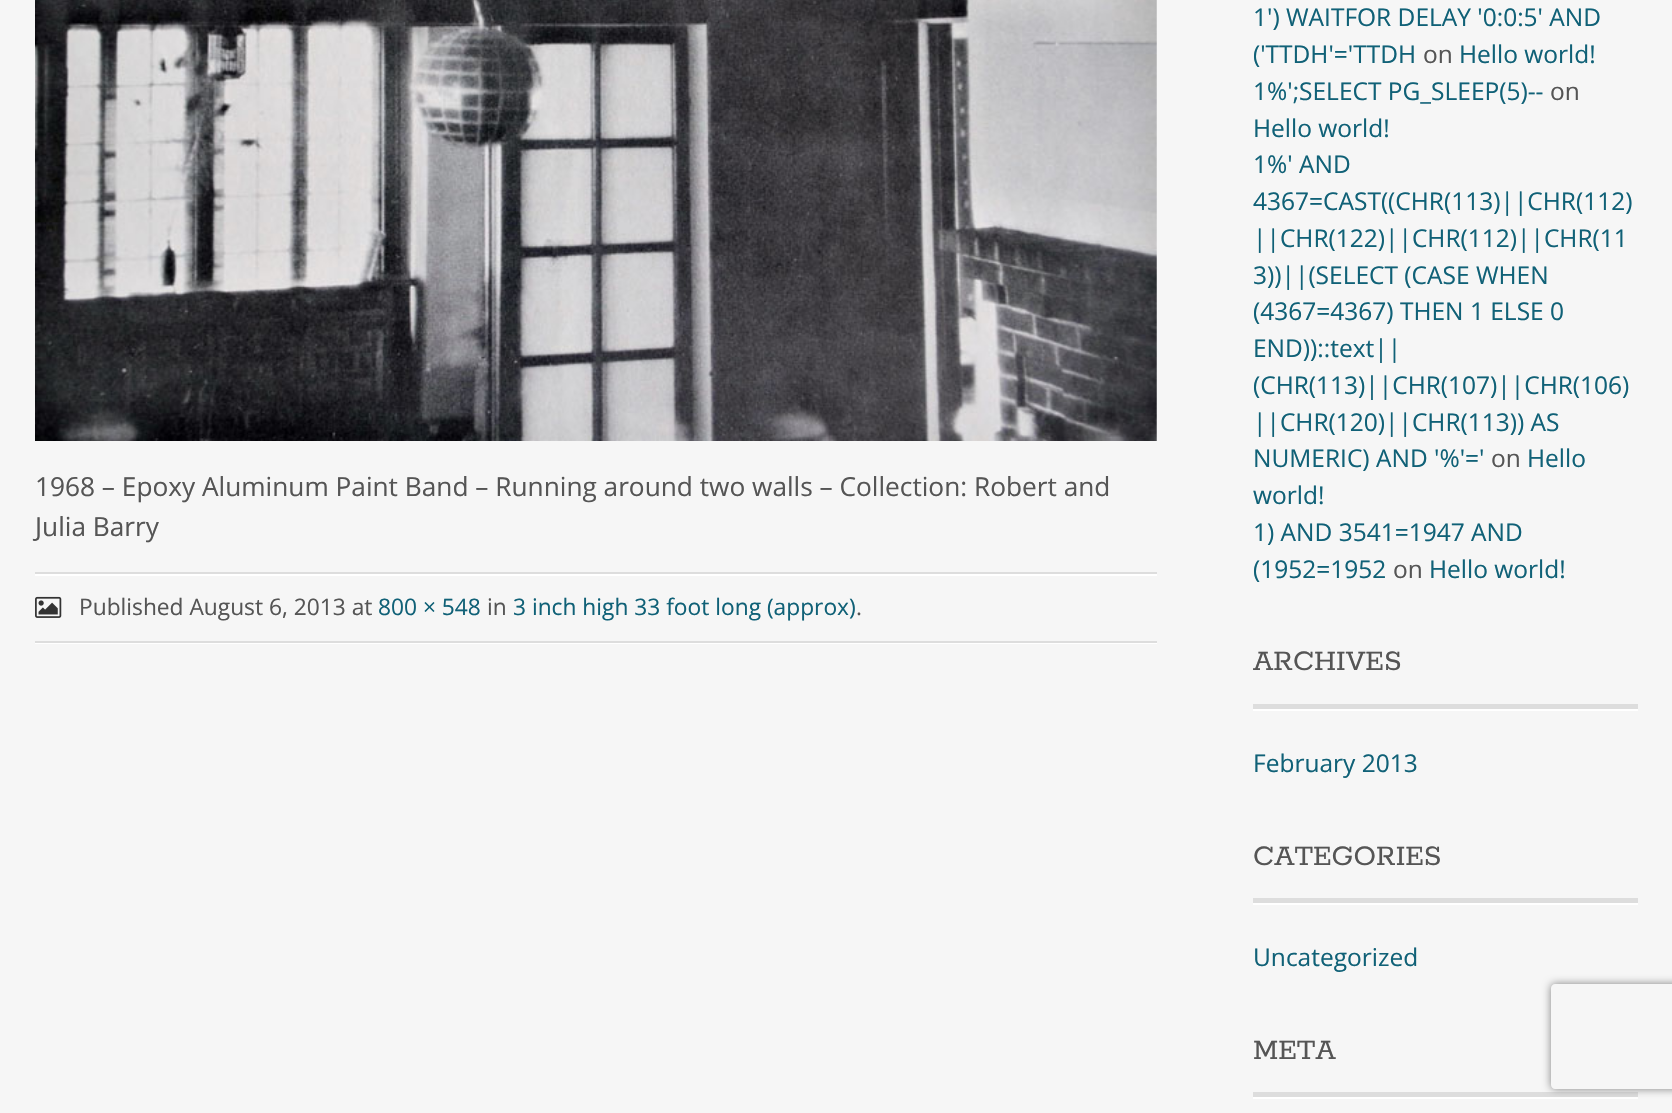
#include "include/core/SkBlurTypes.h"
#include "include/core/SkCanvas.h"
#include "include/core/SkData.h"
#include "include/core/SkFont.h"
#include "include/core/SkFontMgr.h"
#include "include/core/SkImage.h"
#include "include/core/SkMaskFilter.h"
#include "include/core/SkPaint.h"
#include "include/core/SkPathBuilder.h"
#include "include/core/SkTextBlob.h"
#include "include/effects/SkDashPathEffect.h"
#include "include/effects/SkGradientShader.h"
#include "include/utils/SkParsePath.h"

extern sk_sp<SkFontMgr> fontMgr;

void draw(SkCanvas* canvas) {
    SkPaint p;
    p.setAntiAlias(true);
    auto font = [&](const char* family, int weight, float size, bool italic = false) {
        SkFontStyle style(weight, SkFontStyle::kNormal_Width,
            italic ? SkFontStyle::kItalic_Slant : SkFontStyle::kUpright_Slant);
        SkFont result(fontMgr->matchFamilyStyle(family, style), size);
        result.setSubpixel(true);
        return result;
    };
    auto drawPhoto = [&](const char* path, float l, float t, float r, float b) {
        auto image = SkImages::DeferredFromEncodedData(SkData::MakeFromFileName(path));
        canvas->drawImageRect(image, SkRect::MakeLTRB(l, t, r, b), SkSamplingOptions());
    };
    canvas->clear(0xFFF6F6F6);
    drawPhoto("media/1.png", 35, 0, 1157, 441);
    auto font1 = font("Open Sans", 400, 26.25f);
    p.setColor(0xFF555555);
    canvas->drawString("1968 – Epoxy Aluminum Paint Band – Running around two walls – Collection: Robert and", 35, 496, font1, p);
    canvas->drawString("Julia Barry", 35, 536, font1, p);
    p.setColor(0xFFFFFFFF);
    canvas->drawRect(SkRect::MakeLTRB(35, 574, 1157, 576), p);
    p.setColor(0xFFDDDDDD);
    canvas->drawRect(SkRect::MakeLTRB(35, 572, 1157, 574), p);
    drawPhoto("media/2.png", 35, 596, 62, 618);
    auto font2 = font("Open Sans", 400, 22.75f);
    p.setColor(0xFF555555);
    canvas->drawString("Published August 6, 2013 at", 79, 615, font2, p);
    p.setColor(0xFF106177);
    canvas->drawString("800 × 548", 378, 615, font2, p);
    p.setColor(0xFF555555);
    canvas->drawString("in", 487, 615, font2, p);
    p.setColor(0xFF106177);
    canvas->drawString("3 inch high 33 foot long (approx)", 513, 615, font2, p);
    p.setColor(0xFF555555);
    canvas->drawString(".", 856, 615, font2, p);
    p.setColor(0xFFFFFFFF);
    canvas->drawRect(SkRect::MakeLTRB(35, 643, 1157, 644), p);
    p.setColor(0xFFDDDDDD);
    canvas->drawRect(SkRect::MakeLTRB(35, 641, 1157, 643), p);
    auto font3 = font("Open Sans", 400, 24.5f);
    p.setColor(0xFF106177);
    canvas->drawString("1') WAITFOR DELAY '0:0:5' AND", 1253, 26, font3, p);
    canvas->drawString("('TTDH'='TTDH", 1253, 63, font3, p);
    p.setColor(0xFF555555);
    canvas->drawString("on", 1423, 63, font3, p);
    p.setColor(0xFF106177);
    canvas->drawString("Hello world!", 1459, 63, font3, p);
    canvas->drawString("1%';SELECT PG_SLEEP(5)--", 1253, 100, font3, p);
    p.setColor(0xFF555555);
    canvas->drawString("on", 1550, 100, font3, p);
    p.setColor(0xFF106177);
    {
        const struct { const char* s; float x, y; } items[] = {
            {"Hello world!", 1253, 137},
            {"1%' AND", 1253, 173},
            {"4367=CAST((CHR(113)||CHR(112)", 1253, 210},
            {"||CHR(122)||CHR(112)||CHR(11", 1253, 247},
            {"3))||(SELECT (CASE WHEN", 1253, 284},
            {"(4367=4367) THEN 1 ELSE 0", 1253, 320},
            {"END))::text||", 1253, 357},
            {"(CHR(113)||CHR(107)||CHR(106)", 1253, 394},
            {"||CHR(120)||CHR(113)) AS", 1253, 431},
            {"NUMERIC) AND '%'='", 1253, 467},
        };
        for (auto [s, x, y] : items) {
            canvas->drawString(s, x, y, font3, p);
        }
    }
    p.setColor(0xFF555555);
    canvas->drawString("on", 1491, 467, font3, p);
    p.setColor(0xFF106177);
    {
        const struct { const char* s; float x, y; } items[] = {
            {"Hello", 1527, 467},
            {"world!", 1253, 504},
            {"1) AND 3541=1947 AND", 1253, 541},
            {"(1952=1952", 1253, 578},
        };
        for (auto [s, x, y] : items) {
            canvas->drawString(s, x, y, font3, p);
        }
    }
    p.setColor(0xFF555555);
    canvas->drawString("on", 1393, 578, font3, p);
    p.setColor(0xFF106177);
    canvas->drawString("Hello world!", 1429, 578, font3, p);
    p.setColor(0xFFFFFFFF);
    canvas->drawRect(SkRect::MakeLTRB(1253, 709, 1638, 711), p);
    p.setColor(0xFFDDDDDD);
    canvas->drawRect(SkRect::MakeLTRB(1253, 704, 1638, 709), p);
    auto font4 = font("Rokkitt", 400, 31.5f);
    p.setColor(0xFF555555);
    canvas->drawString("ARCHIVES", 1253, 670, font4, p);
    p.setColor(0xFF106177);
    canvas->drawString("February 2013", 1253, 772, font3, p);
    p.setColor(0xFFFFFFFF);
    canvas->drawRect(SkRect::MakeLTRB(1253, 903, 1638, 905), p);
    p.setColor(0xFFDDDDDD);
    canvas->drawRect(SkRect::MakeLTRB(1253, 898, 1638, 903), p);
    p.setColor(0xFF555555);
    canvas->drawString("CATEGORIES", 1253, 865, font4, p);
    p.setColor(0xFF106177);
    canvas->drawString("Uncategorized", 1253, 966, font3, p);
    p.setColor(0xFFFFFFFF);
    canvas->drawRect(SkRect::MakeLTRB(1253, 1097, 1638, 1099), p);
    p.setColor(0xFFDDDDDD);
    canvas->drawRect(SkRect::MakeLTRB(1253, 1092, 1638, 1097), p);
    p.setColor(0xFF555555);
    canvas->drawString("META", 1253, 1059, font4, p);
    canvas->save();
    canvas->clipPath(SkPathBuilder(SkPathFillType::kEvenOdd).moveTo(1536, 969).lineTo(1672, 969).lineTo(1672, 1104).lineTo(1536, 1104).close().moveTo(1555, 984).lineTo(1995, 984).cubicTo(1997, 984, 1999, 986, 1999, 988).lineTo(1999, 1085).cubicTo(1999, 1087, 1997, 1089, 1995, 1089).lineTo(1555, 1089).cubicTo(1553, 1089, 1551, 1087, 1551, 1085).lineTo(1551, 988).cubicTo(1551, 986, 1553, 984, 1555, 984).close().detach(), true);
    p.setColor(0xFF808080);
    p.setMaskFilter(SkMaskFilter::MakeBlur(kNormal_SkBlurStyle, 4.5f));
    canvas->drawRoundRect(SkRect::MakeLTRB(1551, 984, 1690, 1089), 4, 4, p);
    p.setMaskFilter(nullptr);
    canvas->restore();
}
